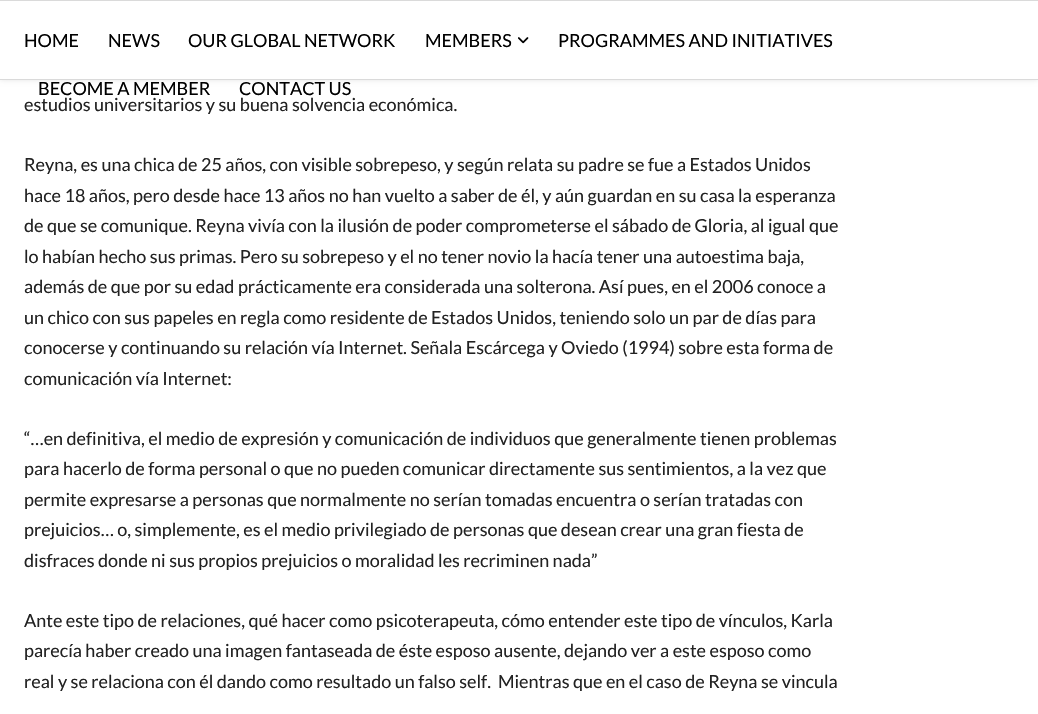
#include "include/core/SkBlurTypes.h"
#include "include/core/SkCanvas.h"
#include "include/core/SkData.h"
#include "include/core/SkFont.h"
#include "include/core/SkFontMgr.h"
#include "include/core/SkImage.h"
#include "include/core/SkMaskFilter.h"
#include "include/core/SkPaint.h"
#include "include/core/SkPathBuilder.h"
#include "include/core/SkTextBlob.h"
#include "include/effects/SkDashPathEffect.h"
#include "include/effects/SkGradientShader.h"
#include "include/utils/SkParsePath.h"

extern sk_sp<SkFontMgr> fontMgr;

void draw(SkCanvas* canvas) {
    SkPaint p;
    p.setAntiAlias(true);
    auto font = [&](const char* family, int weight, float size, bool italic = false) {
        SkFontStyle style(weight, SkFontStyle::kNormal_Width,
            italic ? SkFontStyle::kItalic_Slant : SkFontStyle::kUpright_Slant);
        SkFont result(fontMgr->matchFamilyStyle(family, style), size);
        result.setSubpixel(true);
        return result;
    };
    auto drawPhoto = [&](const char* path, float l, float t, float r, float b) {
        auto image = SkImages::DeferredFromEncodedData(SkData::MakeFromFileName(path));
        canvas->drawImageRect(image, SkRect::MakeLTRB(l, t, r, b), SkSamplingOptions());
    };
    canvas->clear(0xFFFFFFFF);
    p.setColor(0x1A000000);
    p.setMaskFilter(SkMaskFilter::MakeBlur(kNormal_SkBlurStyle, 2.5f));
    canvas->drawRect(SkRect::MakeLTRB(0, 0, 1038, 80), p);
    p.setMaskFilter(nullptr);
    {
        const struct { float l, t, r, b; SkColor color; } items[] = {
            {0, 1, 1038, 79, 0xFFFFFFFF},
            {0, 0, 1038, 1, 0xFFDADADA},
            {0, 79, 1038, 80, 0xFFDADADA},
        };
        for (auto [l, t, r, b, color] : items) {
            p.setColor(color);
            canvas->drawRect(SkRect::MakeLTRB(l, t, r, b), p);
        }
    }
    auto font1 = font("Lato", 400, 18);
    p.setColor(0xFF000000);
    {
        const struct { const char* s; float x, y; } items[] = {
            {"HOME", 24, 47},
            {"NEWS", 108, 47},
            {"OUR GLOBAL NETWORK", 188, 47},
            {"MEMBERS", 425, 47},
        };
        for (auto [s, x, y] : items) {
            canvas->drawString(s, x, y, font1, p);
        }
    }
    drawPhoto("media/1.png", 518, 37, 529, 44);
    {
        const struct { const char* s; float x, y; } items[] = {
            {"PROGRAMMES AND INITIATIVES", 558, 47},
            {"BECOME A MEMBER", 38, 95},
            {"CONTACT US", 239, 95},
        };
        for (auto [s, x, y] : items) {
            canvas->drawString(s, x, y, font1, p);
        }
    }
    p.setColor(0xFF222222);
    {
        const struct { const char* s; float x, y; } items[] = {
            {"estudios universitarios y su buena solvencia económica.", 24, 111},
            {"Reyna, es una chica de 25 años, con visible sobrepeso, y según relata su padre se fue a Estados Unidos", 24, 171},
            {"hace 18 años, pero desde hace 13 años no han vuelto a saber de él, y aún guardan en su casa la esperanza", 24, 202},
            {"de que se comunique. Reyna vivía con la ilusión de poder comprometerse el sábado de Gloria, al igual que", 24, 232},
            {"lo habían hecho sus primas. Pero su sobrepeso y el no tener novio la hacía tener una autoestima baja,", 24, 263},
            {"además de que por su edad prácticamente era considerada una solterona. Así pues, en el 2006 conoce a", 24, 293},
            {"un chico con sus papeles en regla como residente de Estados Unidos, teniendo solo un par de días para", 24, 324},
            {"conocerse y continuando su relación vía Internet. Señala Escárcega y Oviedo (1994) sobre esta forma de", 24, 354},
            {"comunicación vía Internet:", 24, 385},
            {"“…en definitiva, el medio de expresión y comunicación de individuos que generalmente tienen problemas", 24, 445},
            {"para hacerlo de forma personal o que no pueden comunicar directamente sus sentimientos, a la vez que", 24, 475},
            {"permite expresarse a personas que normalmente no serían tomadas encuentra o serían tratadas con", 24, 506},
            {"prejuicios… o, simplemente, es el medio privilegiado de personas que desean crear una gran fiesta de", 24, 536},
            {"disfraces donde ni sus propios prejuicios o moralidad les recriminen nada”", 24, 567},
            {"Ante este tipo de relaciones, qué hacer como psicoterapeuta, cómo entender este tipo de vínculos, Karla", 24, 627},
            {"parecía haber creado una imagen fantaseada de éste esposo ausente, dejando ver a este esposo como", 24, 657},
            {"real y se relaciona con él dando como resultado un falso self.  Mientras que en el caso de Reyna se vincula", 24, 688},
        };
        for (auto [s, x, y] : items) {
            canvas->drawString(s, x, y, font1, p);
        }
    }
}
